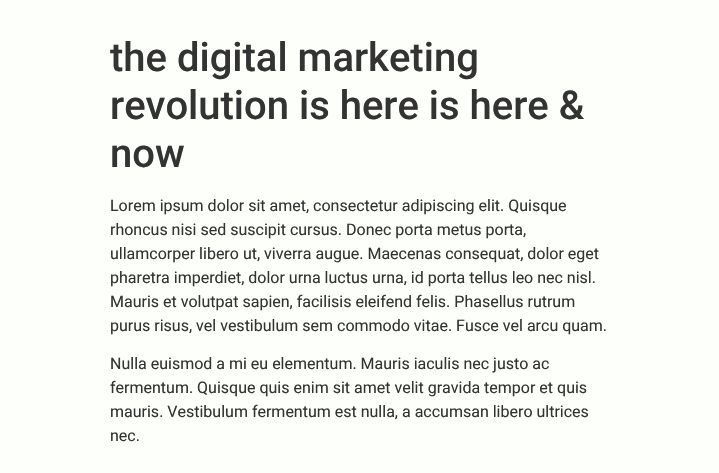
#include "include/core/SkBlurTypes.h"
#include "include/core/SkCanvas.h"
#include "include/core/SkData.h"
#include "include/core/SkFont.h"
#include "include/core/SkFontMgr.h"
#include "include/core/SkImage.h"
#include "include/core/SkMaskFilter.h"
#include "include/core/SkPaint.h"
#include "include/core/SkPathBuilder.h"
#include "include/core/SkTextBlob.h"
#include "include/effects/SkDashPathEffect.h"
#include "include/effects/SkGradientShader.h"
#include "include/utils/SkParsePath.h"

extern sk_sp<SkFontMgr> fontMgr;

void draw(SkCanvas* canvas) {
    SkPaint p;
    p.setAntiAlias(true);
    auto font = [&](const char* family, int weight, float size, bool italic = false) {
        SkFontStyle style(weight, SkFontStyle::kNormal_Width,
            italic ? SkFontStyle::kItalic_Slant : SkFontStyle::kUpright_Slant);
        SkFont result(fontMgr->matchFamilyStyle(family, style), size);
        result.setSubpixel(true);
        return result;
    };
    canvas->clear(0xFFFCFFFA);
    auto font1 = font("Roboto", 500, 40);
    p.setColor(0xFF333333);
    {
        const struct { const char* s; float x, y; } items[] = {
            {"the digital marketing", 110, 71},
            {"revolution is here is here &", 110, 119},
            {"now", 110, 167},
        };
        for (auto [s, x, y] : items) {
            canvas->drawString(s, x, y, font1, p);
        }
    }
    auto font2 = font("Roboto", 400, 16);
    {
        const struct { const char* s; float x, y; } items[] = {
            {"Lorem ipsum dolor sit amet, consectetur adipiscing elit. Quisque", 110, 211},
            {"rhoncus nisi sed suscipit cursus. Donec porta metus porta,", 110, 235},
            {"ullamcorper libero ut, viverra augue. Maecenas consequat, dolor eget", 110, 259},
            {"pharetra imperdiet, dolor urna luctus urna, id porta tellus leo nec nisl.", 110, 283},
            {"Mauris et volutpat sapien, facilisis eleifend felis. Phasellus rutrum", 110, 307},
            {"purus risus, vel vestibulum sem commodo vitae. Fusce vel arcu quam.", 110, 331},
            {"Nulla euismod a mi eu elementum. Mauris iaculis nec justo ac", 110, 369},
            {"fermentum. Quisque quis enim sit amet velit gravida tempor et quis", 110, 393},
            {"mauris. Vestibulum fermentum est nulla, a accumsan libero ultrices", 110, 417},
            {"nec.", 110, 441},
        };
        for (auto [s, x, y] : items) {
            canvas->drawString(s, x, y, font2, p);
        }
    }
}
